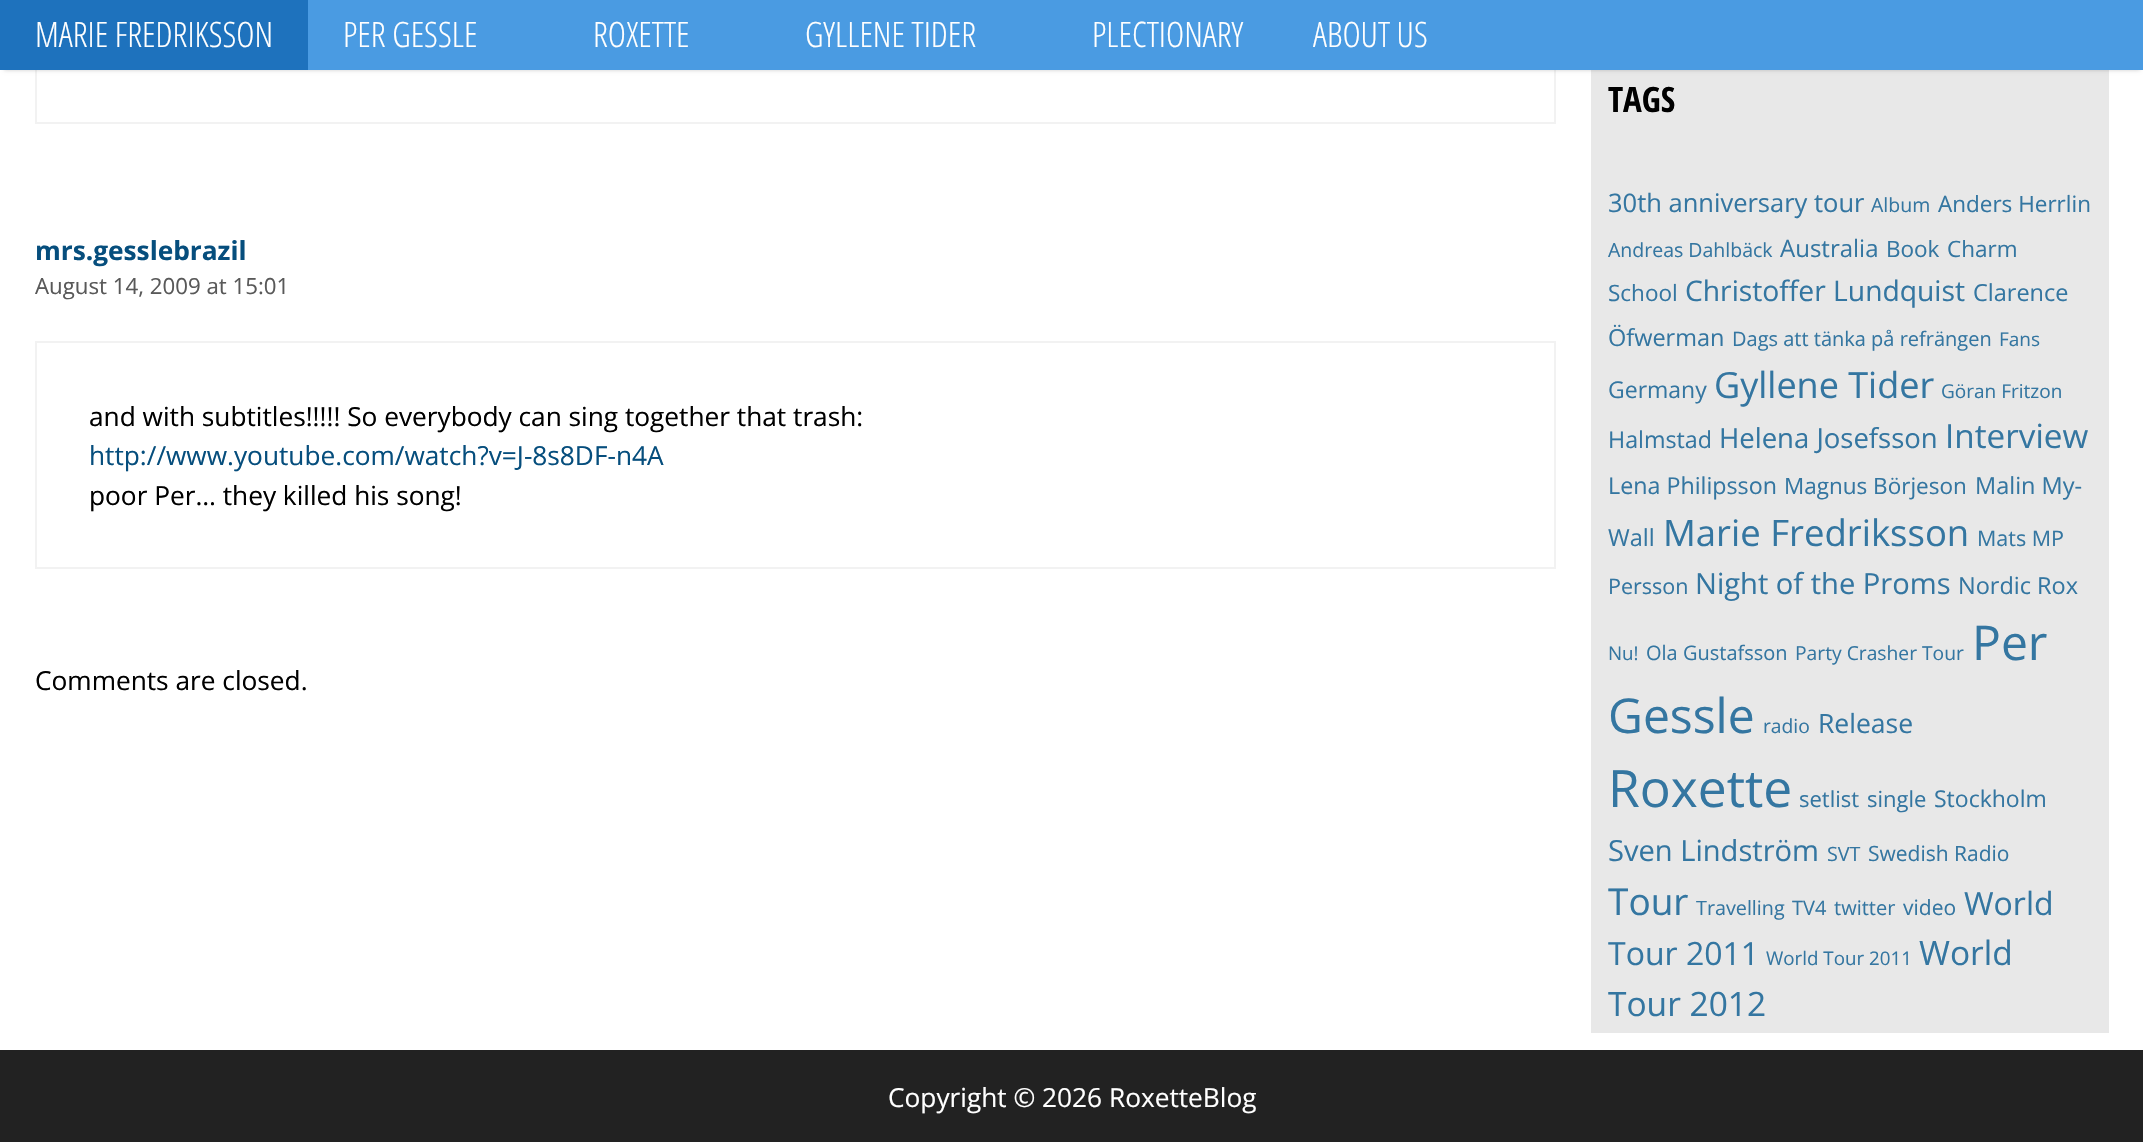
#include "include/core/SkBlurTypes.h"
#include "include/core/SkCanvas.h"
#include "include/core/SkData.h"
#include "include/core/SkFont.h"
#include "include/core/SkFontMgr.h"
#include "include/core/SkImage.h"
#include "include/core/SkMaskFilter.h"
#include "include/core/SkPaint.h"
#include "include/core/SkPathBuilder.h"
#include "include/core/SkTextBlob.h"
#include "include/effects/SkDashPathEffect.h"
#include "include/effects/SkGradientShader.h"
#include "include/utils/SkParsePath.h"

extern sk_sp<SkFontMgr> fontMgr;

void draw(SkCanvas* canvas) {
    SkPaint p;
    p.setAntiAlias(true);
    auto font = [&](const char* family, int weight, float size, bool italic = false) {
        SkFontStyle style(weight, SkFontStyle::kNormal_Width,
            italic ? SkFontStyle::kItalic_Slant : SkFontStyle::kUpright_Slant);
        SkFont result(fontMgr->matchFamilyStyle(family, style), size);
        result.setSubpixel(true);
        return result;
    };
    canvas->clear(0xFFFFFFFF);
    p.setStyle(SkPaint::kStroke_Style);
    p.setStrokeWidth(2);
    p.setColor(0xFFF2F2F2);
    canvas->drawRect(SkRect::MakeLTRB(36, -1, 1555, 123), p);
    p.setStyle(SkPaint::kFill_Style);
    p.setColor(0xFFE8E8E8);
    canvas->drawRect(SkRect::MakeLTRB(1591, 70, 2109, 1033), p);
    p.setColor(0x33000000);
    p.setMaskFilter(SkMaskFilter::MakeBlur(kNormal_SkBlurStyle, 2));
    canvas->drawRect(SkRect::MakeLTRB(4, 7, 2140, 70), p);
    p.setMaskFilter(nullptr);
    p.setColor(0xFF4A9BE2);
    canvas->drawRect(SkRect::MakeLTRB(308, 0, 2143, 70), p);
    p.setColor(0xFF1E72BD);
    canvas->drawRect(SkRect::MakeLTRB(0, 0, 308, 70), p);
    auto font1 = font("Open Sans Condensed", 300, 35);
    p.setColor(0xFFFFFFFF);
    {
        const struct { const char* s; float x, y; } items[] = {
            {"MARIE FREDRIKSSON", 35, 47},
            {"PER GESSLE", 343, 47},
            {"ROXETTE", 593, 47},
            {"GYLLENE TIDER", 805, 47},
            {"PLECTIONARY", 1092, 47},
            {"ABOUT US", 1313, 47},
        };
        for (auto [s, x, y] : items) {
            canvas->drawString(s, x, y, font1, p);
        }
    }
    auto font2 = font("Open Sans", 700, 26.25f);
    p.setColor(0xFF064E7D);
    canvas->drawString("mrs.gesslebrazil", 35, 260, font2, p);
    auto font3 = font("Open Sans", 400, 22.25f);
    p.setColor(0xFF595959);
    canvas->drawString("August 14, 2009 at 15:01", 35, 294, font3, p);
    p.setStyle(SkPaint::kStroke_Style);
    p.setColor(0xFFF2F2F2);
    canvas->drawRect(SkRect::MakeLTRB(36, 342, 1555, 568), p);
    auto font4 = font("Open Sans", 400, 26.25f);
    p.setStyle(SkPaint::kFill_Style);
    p.setColor(0xFF000000);
    canvas->drawString("and with subtitles!!!!! So everybody can sing together that trash:", 89, 426, font4, p);
    p.setColor(0xFF064E7D);
    canvas->drawString("http://www.youtube.com/watch?v=J-8s8DF-n4A", 89, 465, font4, p);
    p.setColor(0xFF000000);
    canvas->drawString("poor Per… they killed his song!", 89, 505, font4, p);
    canvas->drawString("Comments are closed.", 35, 690, font4, p);
    auto font5 = font("Open Sans Condensed", 700, 35);
    canvas->drawString("TAGS", 1608, 112, font5, p);
    auto font6 = font("Open Sans", 400, 25.5f);
    p.setColor(0xFF3476A1);
    canvas->drawString("30th anniversary tour", 1608, 212, font6, p);
    auto font7 = font("Open Sans", 400, 19.5f);
    canvas->drawString("Album", 1871, 212, font7, p);
    auto font8 = font("Open Sans", 400, 22.5f);
    canvas->drawString("Anders Herrlin", 1938, 212, font8, p);
    canvas->drawString("Andreas Dahlbäck", 1608, 257, font7, p);
    auto font9 = font("Open Sans", 400, 24);
    canvas->drawString("Australia", 1780, 257, font9, p);
    {
        const struct { const char* s; float x, y; } items[] = {
            {"Book", 1886, 257},
            {"Charm", 1947, 257},
            {"School", 1608, 301},
        };
        for (auto [s, x, y] : items) {
            canvas->drawString(s, x, y, font8, p);
        }
    }
    auto font10 = font("Open Sans", 400, 28.25f);
    canvas->drawString("Christoffer Lundquist", 1685, 301, font10, p);
    auto font11 = font("Open Sans", 400, 23.5f);
    canvas->drawString("Clarence", 1973, 301, font11, p);
    canvas->drawString("Öfwerman", 1608, 346, font11, p);
    auto font12 = font("Open Sans", 400, 20);
    canvas->drawString("Dags att tänka på refrängen", 1732, 346, font12, p);
    auto font13 = font("Open Sans", 400, 19);
    canvas->drawString("Fans", 1999, 346, font13, p);
    auto font14 = font("Open Sans", 400, 23);
    canvas->drawString("Germany", 1608, 398, font14, p);
    auto font15 = font("Open Sans", 400, 36);
    canvas->drawString("Gyllene Tider", 1714, 398, font15, p);
    canvas->drawString("Göran Fritzon", 1941, 398, font13, p);
    auto font16 = font("Open Sans", 400, 23.25f);
    canvas->drawString("Halmstad", 1608, 448, font16, p);
    auto font17 = font("Open Sans", 400, 27.5f);
    canvas->drawString("Helena Josefsson", 1719, 448, font17, p);
    auto font18 = font("Open Sans", 400, 33.25f);
    canvas->drawString("Interview", 1945, 448, font18, p);
    canvas->drawString("Lena Philipsson", 1608, 494, font16, p);
    canvas->drawString("Magnus Börjeson", 1784, 494, font8, p);
    canvas->drawString("Malin My-", 1975, 494, font11, p);
    canvas->drawString("Wall", 1608, 546, font11, p);
    auto font19 = font("Open Sans", 400, 36.5f);
    canvas->drawString("Marie Fredriksson", 1663, 546, font19, p);
    auto font20 = font("Open Sans", 400, 21.5f);
    canvas->drawString("Mats MP", 1977, 546, font20, p);
    canvas->drawString("Persson", 1608, 594, font20, p);
    auto font21 = font("Open Sans", 400, 29.1f);
    canvas->drawString("Night of the Proms", 1695, 594, font21, p);
    canvas->drawString("Nordic Rox", 1958, 594, font11, p);
    auto font22 = font("Open Sans", 400, 18.75f);
    canvas->drawString("Nu!", 1608, 660, font22, p);
    canvas->drawString("Ola Gustafsson", 1646, 660, font12, p);
    auto font23 = font("Open Sans", 400, 19.25f);
    canvas->drawString("Party Crasher Tour", 1795, 660, font23, p);
    auto font24 = font("Open Sans", 400, 48);
    canvas->drawString("Per", 1972, 660, font24, p);
    canvas->drawString("Gessle", 1608, 733, font24, p);
    canvas->drawString("radio", 1763, 733, font23, p);
    auto font25 = font("Open Sans", 400, 26.5f);
    canvas->drawString("Release", 1818, 733, font25, p);
    auto font26 = font("Open Sans", 400, 51.5f);
    canvas->drawString("Roxette", 1608, 807, font26, p);
    auto font27 = font("Open Sans", 400, 22);
    canvas->drawString("setlist", 1799, 807, font27, p);
    canvas->drawString("single", 1867, 807, font27, p);
    canvas->drawString("Stockholm", 1934, 807, font14, p);
    canvas->drawString("Sven Lindström", 1608, 861, font21, p);
    auto font28 = font("Open Sans", 400, 19.75f);
    canvas->drawString("SVT", 1827, 861, font28, p);
    auto font29 = font("Open Sans", 400, 21);
    canvas->drawString("Swedish Radio", 1868, 861, font29, p);
    auto font30 = font("Open Sans", 400, 37);
    canvas->drawString("Tour", 1608, 915, font30, p);
    canvas->drawString("Travelling", 1696, 915, font28, p);
    canvas->drawString("TV4", 1792, 915, font12, p);
    canvas->drawString("twitter", 1834, 915, font12, p);
    canvas->drawString("video", 1903, 915, font29, p);
    auto font31 = font("Open Sans", 400, 32);
    canvas->drawString("World", 1964, 915, font31, p);
    canvas->drawString("Tour 2011", 1608, 965, font31, p);
    canvas->drawString("World Tour 2011", 1766, 965, font22, p);
    auto font32 = font("Open Sans", 400, 33.5f);
    canvas->drawString("World", 1919, 965, font32, p);
    canvas->drawString("Tour 2012", 1608, 1016, font32, p);
    p.setColor(0xFF222222);
    canvas->drawRect(SkRect::MakeLTRB(0, 1050, 2143, 1142), p);
    p.setColor(0xFFFFFFFF);
    canvas->drawString("Copyright © 2026 RoxetteBlog", 888, 1107, font4, p);
}
